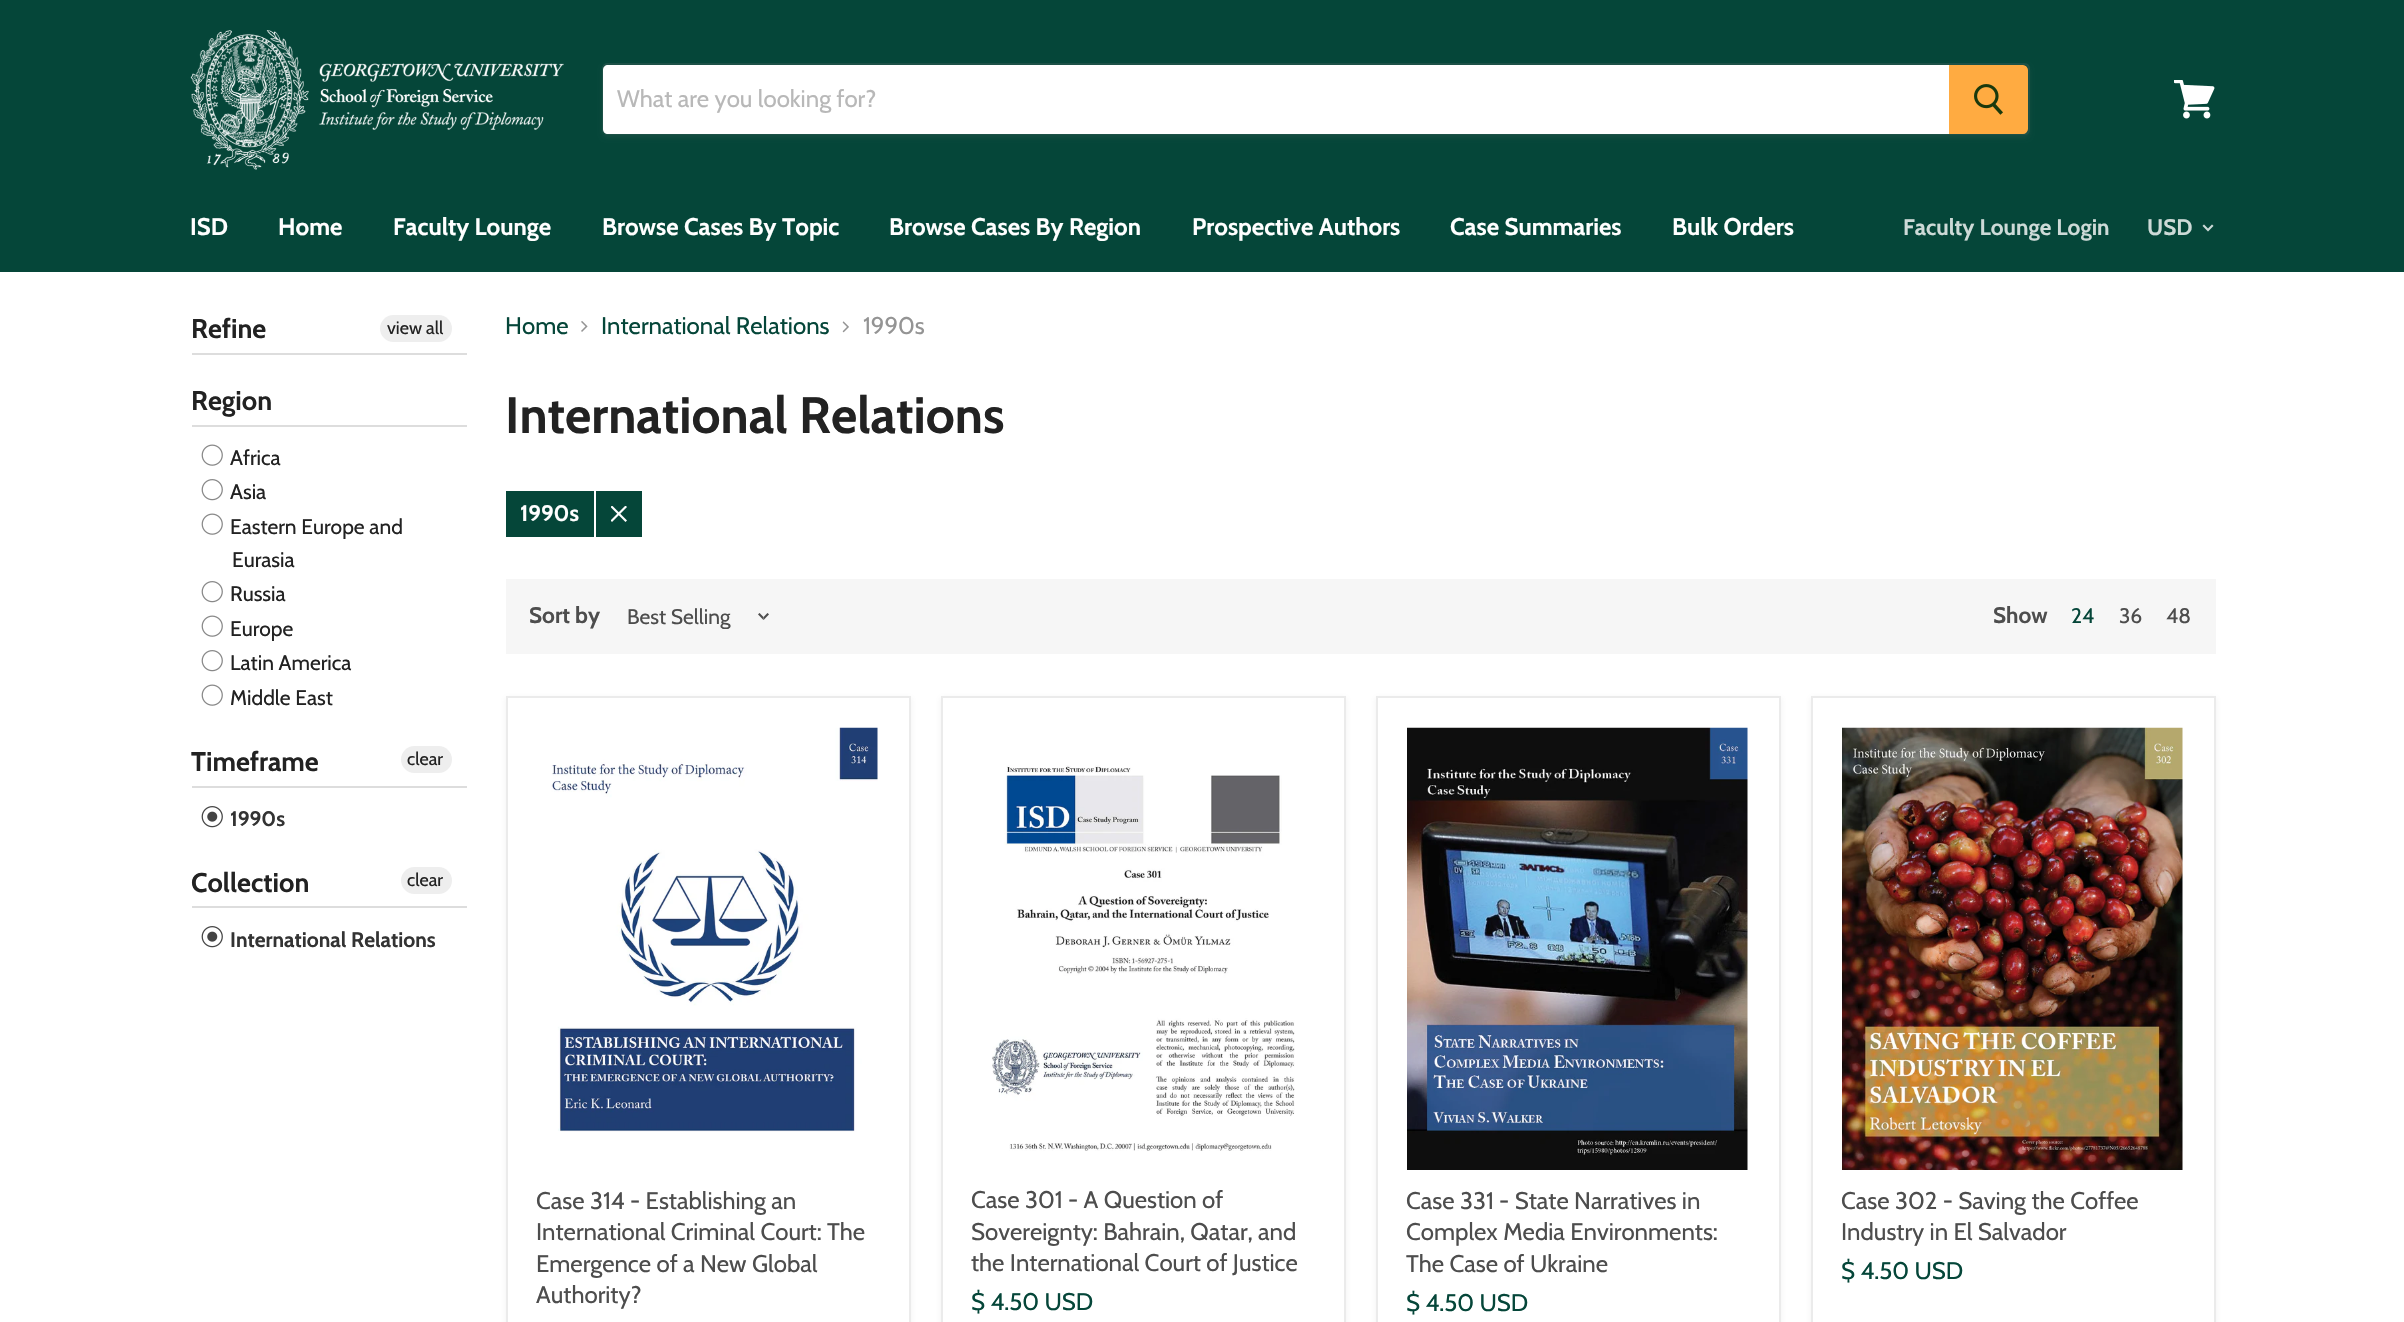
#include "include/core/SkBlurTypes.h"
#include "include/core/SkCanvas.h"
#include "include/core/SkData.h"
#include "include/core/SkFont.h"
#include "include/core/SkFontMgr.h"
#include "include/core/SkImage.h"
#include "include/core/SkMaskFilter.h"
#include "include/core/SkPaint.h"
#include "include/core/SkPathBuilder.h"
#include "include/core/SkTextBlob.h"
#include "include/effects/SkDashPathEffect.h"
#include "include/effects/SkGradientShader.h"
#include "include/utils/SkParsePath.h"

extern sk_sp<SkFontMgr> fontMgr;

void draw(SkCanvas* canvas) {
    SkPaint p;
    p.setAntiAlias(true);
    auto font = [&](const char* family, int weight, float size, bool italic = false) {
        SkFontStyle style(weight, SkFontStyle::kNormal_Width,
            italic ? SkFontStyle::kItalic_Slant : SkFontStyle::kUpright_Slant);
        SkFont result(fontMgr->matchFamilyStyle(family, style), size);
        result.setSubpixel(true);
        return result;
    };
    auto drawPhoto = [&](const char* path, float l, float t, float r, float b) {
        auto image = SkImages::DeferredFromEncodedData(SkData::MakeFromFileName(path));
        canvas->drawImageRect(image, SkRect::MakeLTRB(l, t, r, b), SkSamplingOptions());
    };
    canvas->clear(0xFFFFFFFF);
    p.setColor(0xFF054639);
    canvas->drawRect(SkRect::MakeLTRB(0, 0, 2404, 272), p);
    drawPhoto("media/1.png", 190, 30, 564, 170);
    canvas->save();
    canvas->clipPath(SkPathBuilder(SkPathFillType::kEvenOdd).moveTo(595, 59).lineTo(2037, 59).lineTo(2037, 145).lineTo(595, 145).close().moveTo(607, 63).lineTo(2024, 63).cubicTo(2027.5f, 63, 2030, 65.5f, 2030, 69).lineTo(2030, 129).cubicTo(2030, 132.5f, 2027.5f, 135, 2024, 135).lineTo(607, 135).cubicTo(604, 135, 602, 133, 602, 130).lineTo(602, 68).cubicTo(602, 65, 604, 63, 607, 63).close().detach(), true);
    p.setColor(0x1C7F7F7F);
    p.setMaskFilter(SkMaskFilter::MakeBlur(kNormal_SkBlurStyle, 2));
    canvas->drawRoundRect(SkRect::MakeLTRB(602, 66, 2030, 138), 6, 6, p);
    p.setMaskFilter(nullptr);
    canvas->restore();
    p.setStyle(SkPaint::kStroke_Style);
    p.setStrokeWidth(2);
    p.setColor(0x337F7F7F);
    canvas->drawPath(SkPathBuilder().moveTo(607, 64).lineTo(2024, 64).cubicTo(2027, 64, 2029, 66, 2029, 69).lineTo(2029, 129).cubicTo(2029, 132, 2027, 134, 2024, 134).lineTo(607, 134).cubicTo(605, 134, 603, 132, 603, 130).lineTo(603, 68).cubicTo(603, 66, 605, 64, 607, 64).close().detach(), p);
    p.setStyle(SkPaint::kFill_Style);
    p.setColor(0xFFFFFFFF);
    canvas->drawPath(SkPathBuilder().moveTo(608, 65).lineTo(1949, 65).lineTo(1949, 134).lineTo(608, 134).cubicTo(605, 134, 603, 132, 603, 129).lineTo(603, 70).cubicTo(603, 67, 605, 65, 608, 65).close().detach(), p);
    auto font1 = font("Cabin", 400, 24);
    p.setColor(0xFFB8B8B8);
    canvas->drawString("What are you looking for?", 617, 107, font1, p);
    p.setColor(0xFFFFAB41);
    canvas->drawPath(SkPathBuilder().moveTo(1950, 66).lineTo(2023, 66).cubicTo(2025, 66, 2027, 68, 2027, 70).lineTo(2027, 129).cubicTo(2027, 131, 2025, 133, 2023, 133).lineTo(1950, 133).close().detach(), p);
    p.setStyle(SkPaint::kStroke_Style);
    canvas->drawPath(SkPathBuilder().moveTo(1950, 66).lineTo(2023, 66).cubicTo(2025, 66, 2027, 68, 2027, 70).lineTo(2027, 129).cubicTo(2027, 131, 2025, 133, 2023, 133).lineTo(1950, 133).close().detach(), p);
    drawPhoto("media/2.png", 1974, 84, 2003, 115);
    drawPhoto("media/3.png", 2174, 80, 2215, 119);
    auto font2 = font("Cabin", 700, 24);
    p.setStyle(SkPaint::kFill_Style);
    p.setColor(0xFFFFFFFF);
    {
        const struct { const char* s; float x, y; } items[] = {
            {"ISD", 190, 235},
            {"Home", 278, 235},
            {"Faculty Lounge", 393, 235},
            {"Browse Cases By Topic", 602, 235},
            {"Browse Cases By Region", 889, 235},
            {"Prospective Authors", 1192, 235},
            {"Case Summaries", 1450, 235},
            {"Bulk Orders", 1672, 235},
        };
        for (auto [s, x, y] : items) {
            canvas->drawString(s, x, y, font2, p);
        }
    }
    auto font3 = font("Cabin", 700, 22.5f);
    p.setColor(0xFFCDDAD7);
    canvas->drawString("Faculty Lounge Login", 1903, 235, font3, p);
    canvas->drawString("USD", 2147, 235, font3, p);
    drawPhoto("media/4.png", 2202, 224, 2214, 232);
    p.setColor(0xFFDDDDDD);
    canvas->drawRect(SkRect::MakeLTRB(192, 353, 467, 355), p);
    auto font4 = font("Cabin", 700, 27);
    p.setColor(0xFF222222);
    canvas->drawString("Refine", 191, 338, font4, p);
    p.setColor(0xFFEEEEEE);
    canvas->drawRoundRect(SkRect::MakeLTRB(380, 315, 452, 342), 13.5f, 13.5f, p);
    auto font5 = font("Cabin", 400, 18);
    p.setColor(0xFF222222);
    canvas->drawString("view all", 387, 334, font5, p);
    p.setColor(0xFFDDDDDD);
    canvas->drawRect(SkRect::MakeLTRB(192, 425, 467, 427), p);
    p.setColor(0xFF222222);
    canvas->drawString("Region", 191, 410, font4, p);
    drawPhoto("media/5.png", 201, 444, 223, 466);
    auto font6 = font("Cabin", 400, 21);
    canvas->drawString("Africa", 230, 465, font6, p);
    drawPhoto("media/6.png", 201, 479, 223, 501);
    canvas->drawString("Asia", 230, 499, font6, p);
    drawPhoto("media/5.png", 201, 513, 223, 535);
    canvas->drawString("Eastern Europe and", 230, 534, font6, p);
    canvas->drawString("Eurasia", 232, 567, font6, p);
    drawPhoto("media/6.png", 201, 581, 223, 603);
    canvas->drawString("Russia", 230, 601, font6, p);
    drawPhoto("media/5.png", 201, 615, 223, 637);
    canvas->drawString("Europe", 230, 636, font6, p);
    drawPhoto("media/6.png", 201, 650, 223, 672);
    canvas->drawString("Latin America", 230, 670, font6, p);
    drawPhoto("media/5.png", 201, 684, 223, 706);
    canvas->drawString("Middle East", 230, 705, font6, p);
    p.setColor(0xFFDDDDDD);
    canvas->drawRect(SkRect::MakeLTRB(192, 786, 467, 788), p);
    p.setColor(0xFF222222);
    canvas->drawString("Timeframe", 191, 771, font4, p);
    p.setColor(0xFFEEEEEE);
    canvas->drawRoundRect(SkRect::MakeLTRB(401, 746, 452, 773), 13.5f, 13.5f, p);
    p.setColor(0xFF222222);
    canvas->drawString("clear", 407, 765, font5, p);
    drawPhoto("media/7.png", 201, 806, 223, 828);
    auto font7 = font("Cabin", 700, 21);
    p.setColor(0xFF333333);
    canvas->drawString("1990s", 230, 826, font7, p);
    p.setColor(0xFFDDDDDD);
    canvas->drawRect(SkRect::MakeLTRB(192, 906, 467, 908), p);
    p.setColor(0xFF222222);
    canvas->drawString("Collection", 191, 892, font4, p);
    p.setColor(0xFFEEEEEE);
    canvas->drawRoundRect(SkRect::MakeLTRB(401, 867, 452, 894), 13.5f, 13.5f, p);
    p.setColor(0xFF222222);
    canvas->drawString("clear", 407, 886, font5, p);
    drawPhoto("media/7.png", 201, 926, 223, 948);
    p.setColor(0xFF333333);
    canvas->drawString("International Relations", 230, 947, font7, p);
    p.setColor(0xFF054639);
    canvas->drawString("Home", 505, 334, font1, p);
    drawPhoto("media/8.png", 581, 321, 588, 332);
    canvas->drawString("International Relations", 601, 334, font1, p);
    drawPhoto("media/9.png", 842, 321, 849, 333);
    p.setColor(0xFF949494);
    canvas->drawString("1990s", 863, 334, font1, p);
    auto font8 = font("Cabin", 700, 51);
    p.setColor(0xFF222222);
    canvas->drawString("International Relations", 505, 433, font8, p);
    p.setColor(0xFF054639);
    canvas->drawRect(SkRect::MakeLTRB(506, 491, 642, 537), p);
    p.setColor(0xFFFFFFFF);
    canvas->drawRect(SkRect::MakeLTRB(594, 491, 596, 537), p);
    canvas->drawString("1990s", 520, 521, font3, p);
    drawPhoto("media/10.png", 611, 506, 627, 522);
    p.setColor(0xFFF6F6F6);
    canvas->drawRect(SkRect::MakeLTRB(506, 579, 2216, 654), p);
    p.setColor(0xFF4D4D4D);
    canvas->drawString("Sort by", 529, 623, font3, p);
    canvas->save();
    canvas->clipRect(SkRect::MakeLTRB(627, 605, 743, 629));
    canvas->drawString("Best Selling", 627, 624, font6, p);
    canvas->restore();
    drawPhoto("media/11.png", 758, 613, 769, 620);
    canvas->drawString("Show", 1993, 623, font3, p);
    p.setColor(0xFF054639);
    canvas->drawString("24", 2071, 623, font6, p);
    p.setColor(0xFF4D4D4D);
    canvas->drawString("36", 2119, 623, font6, p);
    canvas->drawString("48", 2166, 623, font6, p);
    p.setColor(0x1C7F7F7F);
    p.setMaskFilter(SkMaskFilter::MakeBlur(kNormal_SkBlurStyle, 3));
    canvas->drawRect(SkRect::MakeLTRB(506, 698, 911, 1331), p);
    p.setMaskFilter(nullptr);
    p.setColor(0xFFFFFFFF);
    canvas->drawRect(SkRect::MakeLTRB(507, 697, 910, 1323), p);
    p.setStyle(SkPaint::kStroke_Style);
    p.setColor(0xFFEBEBEB);
    canvas->drawRect(SkRect::MakeLTRB(507, 697, 910, 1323), p);
    drawPhoto("media/12.png", 551, 727, 878, 1132);
    p.setStyle(SkPaint::kFill_Style);
    p.setColor(0xFF4D4D4D);
    {
        const struct { const char* s; float x, y; } items[] = {
            {"Case 314 - Establishing an", 536, 1209},
            {"International Criminal Court: The", 536, 1240},
            {"Emergence of a New Global", 536, 1272},
            {"Authority?", 536, 1303},
        };
        for (auto [s, x, y] : items) {
            canvas->drawString(s, x, y, font1, p);
        }
    }
    p.setColor(0x1C7F7F7F);
    p.setMaskFilter(SkMaskFilter::MakeBlur(kNormal_SkBlurStyle, 3));
    canvas->drawRect(SkRect::MakeLTRB(941, 698, 1346, 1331), p);
    p.setMaskFilter(nullptr);
    p.setColor(0xFFFFFFFF);
    canvas->drawRect(SkRect::MakeLTRB(942, 697, 1345, 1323), p);
    p.setStyle(SkPaint::kStroke_Style);
    p.setColor(0xFFEBEBEB);
    canvas->drawRect(SkRect::MakeLTRB(942, 697, 1345, 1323), p);
    drawPhoto("media/13.png", 992, 765, 1295, 1151);
    p.setStyle(SkPaint::kFill_Style);
    p.setColor(0xFF4D4D4D);
    {
        const struct { const char* s; float x, y; } items[] = {
            {"Case 301 - A Question of", 971, 1208},
            {"Sovereignty: Bahrain, Qatar, and", 971, 1240},
            {"the International Court of Justice", 971, 1271},
        };
        for (auto [s, x, y] : items) {
            canvas->drawString(s, x, y, font1, p);
        }
    }
    p.setColor(0xFF054639);
    canvas->drawString("$ 4.50 USD", 971, 1310, font1, p);
    p.setColor(0x1C7F7F7F);
    p.setMaskFilter(SkMaskFilter::MakeBlur(kNormal_SkBlurStyle, 3));
    canvas->drawRect(SkRect::MakeLTRB(1376, 698, 1781, 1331), p);
    p.setMaskFilter(nullptr);
    p.setColor(0xFFFFFFFF);
    canvas->drawRect(SkRect::MakeLTRB(1377, 697, 1780, 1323), p);
    p.setStyle(SkPaint::kStroke_Style);
    p.setColor(0xFFEBEBEB);
    canvas->drawRect(SkRect::MakeLTRB(1377, 697, 1780, 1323), p);
    drawPhoto("media/14.png", 1407, 727, 1748, 1170);
    p.setStyle(SkPaint::kFill_Style);
    p.setColor(0xFF4D4D4D);
    {
        const struct { const char* s; float x, y; } items[] = {
            {"Case 331 - State Narratives in", 1406, 1209},
            {"Complex Media Environments:", 1406, 1240},
            {"The Case of Ukraine", 1406, 1272},
        };
        for (auto [s, x, y] : items) {
            canvas->drawString(s, x, y, font1, p);
        }
    }
    p.setColor(0xFF054639);
    canvas->drawString("$ 4.50 USD", 1406, 1311, font1, p);
    p.setColor(0x1C7F7F7F);
    p.setMaskFilter(SkMaskFilter::MakeBlur(kNormal_SkBlurStyle, 3));
    canvas->drawRect(SkRect::MakeLTRB(1811, 698, 2216, 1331), p);
    p.setMaskFilter(nullptr);
    p.setColor(0xFFFFFFFF);
    canvas->drawRect(SkRect::MakeLTRB(1812, 697, 2215, 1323), p);
    p.setStyle(SkPaint::kStroke_Style);
    p.setColor(0xFFEBEBEB);
    canvas->drawRect(SkRect::MakeLTRB(1812, 697, 2215, 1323), p);
    drawPhoto("media/15.png", 1842, 727, 2183, 1170);
    p.setStyle(SkPaint::kFill_Style);
    p.setColor(0xFF4D4D4D);
    canvas->drawString("Case 302 - Saving the Coffee", 1841, 1209, font1, p);
    canvas->drawString("Industry in El Salvador", 1841, 1240, font1, p);
    p.setColor(0xFF054639);
    canvas->drawString("$ 4.50 USD", 1841, 1279, font1, p);
}
